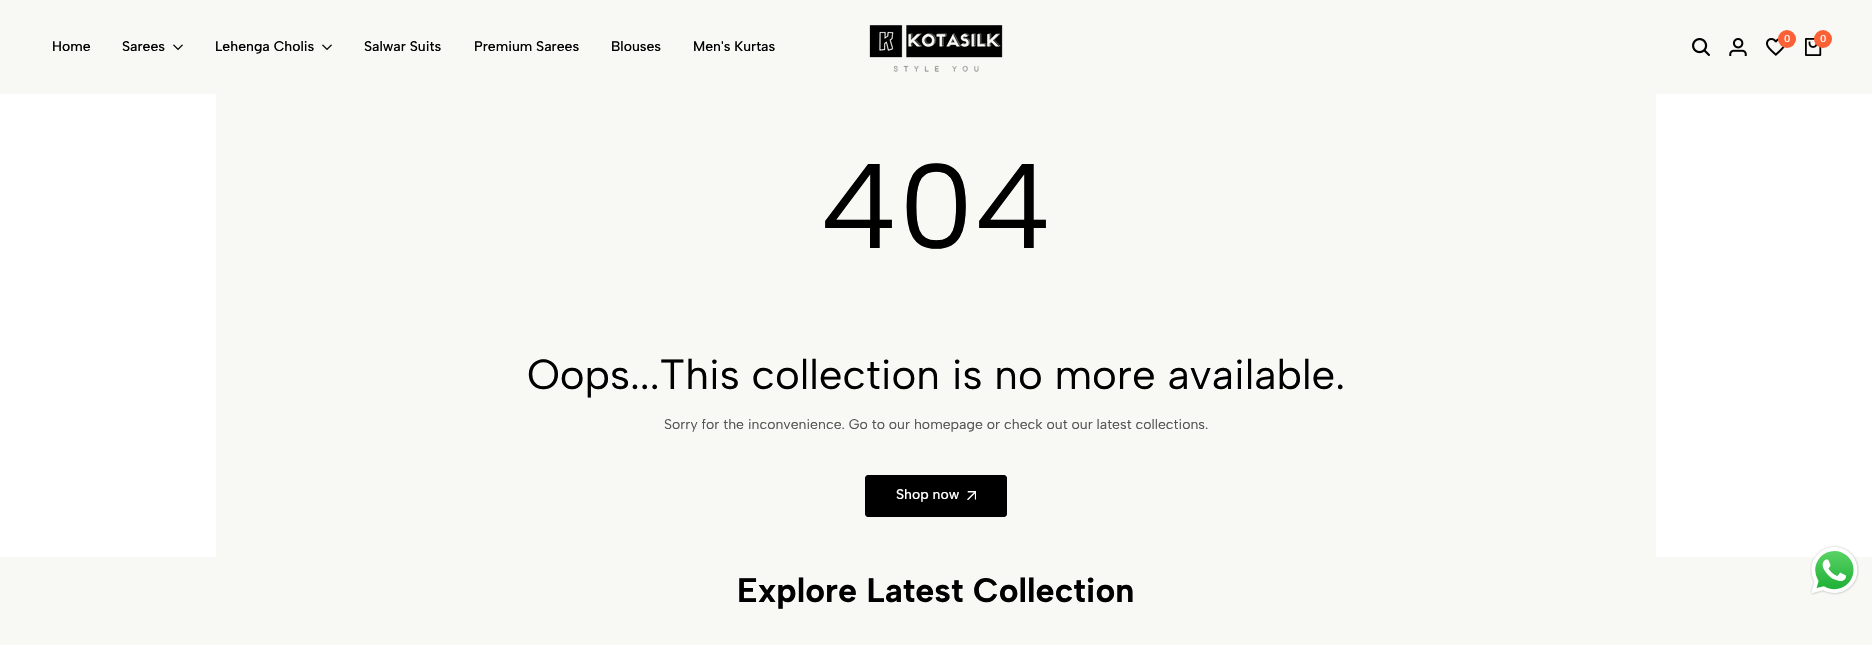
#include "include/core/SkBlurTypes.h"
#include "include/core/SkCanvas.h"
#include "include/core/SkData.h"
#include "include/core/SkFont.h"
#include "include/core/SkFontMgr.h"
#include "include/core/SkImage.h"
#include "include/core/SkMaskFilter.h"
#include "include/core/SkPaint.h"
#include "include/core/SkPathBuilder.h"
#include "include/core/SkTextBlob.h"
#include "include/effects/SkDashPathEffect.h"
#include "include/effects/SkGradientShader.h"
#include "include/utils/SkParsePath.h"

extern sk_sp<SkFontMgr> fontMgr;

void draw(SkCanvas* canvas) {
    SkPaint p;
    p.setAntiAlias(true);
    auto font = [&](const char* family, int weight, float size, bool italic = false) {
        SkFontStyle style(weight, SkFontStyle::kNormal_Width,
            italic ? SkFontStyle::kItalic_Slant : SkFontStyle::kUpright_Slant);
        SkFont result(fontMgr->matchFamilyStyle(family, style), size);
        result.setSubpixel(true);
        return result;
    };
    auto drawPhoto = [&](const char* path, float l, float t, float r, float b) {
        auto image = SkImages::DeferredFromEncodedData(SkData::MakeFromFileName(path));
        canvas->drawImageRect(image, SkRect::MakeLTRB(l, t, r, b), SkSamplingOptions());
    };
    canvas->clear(0xFFFFFFFF);
    p.setColor(0xFFF8F8F4);
    canvas->drawRect(SkRect::MakeLTRB(0, 0, 1872, 94), p);
    drawPhoto("media/1.png", 869, 25, 1003, 72);
    drawPhoto("media/2.png", 1692, 38, 1710, 56);
    drawPhoto("media/3.png", 1729, 38, 1747, 56);
    drawPhoto("media/4.png", 1766, 38, 1785, 56);
    p.setColor(0xFFFC6035);
    canvas->drawCircle(1787, 39, 9, p);
    auto font1 = font("Albert Sans", 500, 10);
    p.setColor(0xFFFFFFFF);
    canvas->drawString("0", 1784, 42, font1, p);
    drawPhoto("media/5.png", 1805, 38, 1822, 56);
    p.setColor(0xFFFC6035);
    canvas->drawCircle(1823, 39, 9, p);
    p.setColor(0xFFFFFFFF);
    canvas->drawString("0", 1820, 42, font1, p);
    auto font2 = font("Albert Sans", 500, 14);
    p.setColor(0xFF000000);
    canvas->drawString("Home", 52, 51, font2, p);
    canvas->drawString("Sarees", 122, 51, font2, p);
    drawPhoto("media/6.png", 173, 44, 183, 51);
    canvas->drawString("Lehenga Cholis", 215, 51, font2, p);
    drawPhoto("media/6.png", 322, 44, 332, 51);
    {
        const struct { const char* s; float x, y; } items[] = {
            {"Salwar Suits", 364, 51},
            {"Premium Sarees", 474, 51},
            {"Blouses", 611, 51},
            {"Men's Kurtas", 693, 51},
        };
        for (auto [s, x, y] : items) {
            canvas->drawString(s, x, y, font2, p);
        }
    }
    p.setColor(0xFFF8F8F4);
    canvas->drawRect(SkRect::MakeLTRB(216, 94, 1656, 557), p);
    auto font3 = font("Albert Sans", 400, 120);
    p.setColor(0xFF000000);
    canvas->drawString("404", 820, 248, font3, p);
    auto font4 = font("Albert Sans", 400, 42);
    canvas->drawString("Oops...This collection is no more available.", 527, 389, font4, p);
    auto font5 = font("Albert Sans", 400, 14);
    p.setColor(0xFF545454);
    canvas->drawString("Sorry for the inconvenience. Go to our homepage or check out our latest collections.", 664, 429, font5, p);
    p.setColor(0xFF000000);
    canvas->drawRoundRect(SkRect::MakeLTRB(865.5f, 475.5f, 1006.5f, 516.5f), 2.5f, 2.5f, p);
    p.setStyle(SkPaint::kStroke_Style);
    p.setStrokeWidth(1);
    canvas->drawRoundRect(SkRect::MakeLTRB(865.5f, 475.5f, 1006.5f, 516.5f), 2.5f, 2.5f, p);
    p.setStyle(SkPaint::kFill_Style);
    p.setColor(0xFFFFFFFF);
    canvas->drawString("Shop now", 896, 499, font2, p);
    drawPhoto("media/7.png", 967, 491, 976, 500);
    p.setColor(0xFFF8F8F4);
    canvas->drawRect(SkRect::MakeLTRB(0, 557, 1872, 645), p);
    auto font6 = font("Albert Sans", 700, 34);
    p.setColor(0xFF000000);
    canvas->drawString("Explore Latest Collection", 737, 602, font6, p);
    drawPhoto("media/8.png", 1810, 545, 1859, 595);
}
